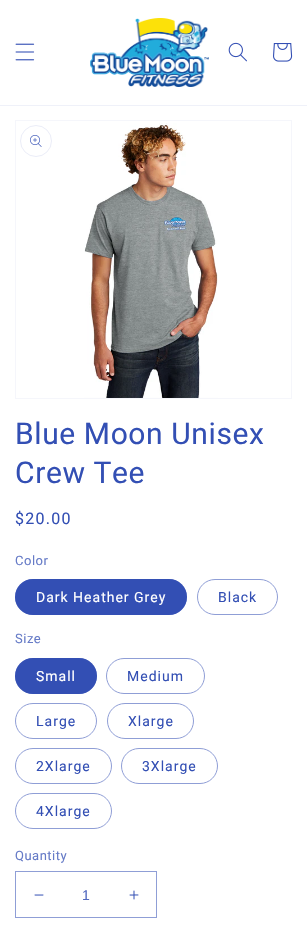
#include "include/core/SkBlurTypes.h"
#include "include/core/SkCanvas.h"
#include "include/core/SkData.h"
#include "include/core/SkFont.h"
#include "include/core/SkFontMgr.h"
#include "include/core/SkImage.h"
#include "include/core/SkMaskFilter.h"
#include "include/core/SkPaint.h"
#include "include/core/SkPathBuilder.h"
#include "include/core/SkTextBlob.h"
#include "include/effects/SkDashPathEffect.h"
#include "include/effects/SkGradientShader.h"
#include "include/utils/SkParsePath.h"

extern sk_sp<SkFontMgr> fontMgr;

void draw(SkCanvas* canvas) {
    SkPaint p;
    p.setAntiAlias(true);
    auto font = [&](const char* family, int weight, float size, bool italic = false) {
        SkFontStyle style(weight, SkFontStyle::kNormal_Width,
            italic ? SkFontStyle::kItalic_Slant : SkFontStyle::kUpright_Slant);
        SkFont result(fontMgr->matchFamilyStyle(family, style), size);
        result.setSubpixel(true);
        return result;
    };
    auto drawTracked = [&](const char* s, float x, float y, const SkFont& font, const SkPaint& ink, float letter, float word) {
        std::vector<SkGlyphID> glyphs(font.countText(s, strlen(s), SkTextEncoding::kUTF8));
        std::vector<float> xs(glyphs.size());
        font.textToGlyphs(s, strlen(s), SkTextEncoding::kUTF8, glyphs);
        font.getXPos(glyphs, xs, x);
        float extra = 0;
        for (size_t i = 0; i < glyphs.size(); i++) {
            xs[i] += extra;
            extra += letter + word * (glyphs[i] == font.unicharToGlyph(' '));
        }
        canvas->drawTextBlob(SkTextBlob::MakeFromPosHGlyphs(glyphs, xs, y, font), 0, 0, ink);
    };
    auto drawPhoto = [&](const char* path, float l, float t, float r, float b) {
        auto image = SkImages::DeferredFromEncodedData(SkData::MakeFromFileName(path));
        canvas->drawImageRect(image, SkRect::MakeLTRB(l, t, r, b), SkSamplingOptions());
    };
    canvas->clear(0xFFFFFFFF);
    p.setColor(0xFFEFF1F9);
    canvas->drawRect(SkRect::MakeLTRB(0, 105, 307, 106), p);
    drawPhoto("media/1.png", 15, 43, 35, 61);
    drawPhoto("media/2.png", 90, 18, 209, 87);
    drawPhoto("media/3.png", 228, 42, 247, 62);
    drawPhoto("media/4.png", 273, 43, 293, 62);
    p.setStyle(SkPaint::kStroke_Style);
    p.setStrokeWidth(1);
    p.setColor(0xFFF5F6FB);
    canvas->drawRect(SkRect::MakeLTRB(15.5f, 120.5f, 291.5f, 398.5f), p);
    drawPhoto("media/5.png", 84, 123, 218, 398);
    p.setColor(0xFFEBEDF8);
    canvas->drawCircle(36, 141, 15.5f, p);
    drawPhoto("media/6.png", 30, 135, 42, 147);
    auto font1 = font("Roboto", 400, 30);
    p.setStyle(SkPaint::kFill_Style);
    p.setColor(0xFF334FB4);
    drawTracked("Blue Moon Unisex", 15, 444, font1, p, 0.6f, 0);
    drawTracked("Crew Tee", 15, 483, font1, p, 0.6f, 0);
    auto font2 = font("Roboto", 400, 16);
    drawTracked("$20.00", 15, 524, font2, p, 1.25f, 0);
    auto font3 = font("Roboto", 400, 13);
    p.setColor(0xFF667BC7);
    drawTracked("Color", 15, 565, font3, p, 0.5f, 0);
    p.setColor(0xFF334FB4);
    canvas->drawRoundRect(SkRect::MakeLTRB(15, 579, 187, 615), 18, 18, p);
    p.setStyle(SkPaint::kStroke_Style);
    p.setColor(0x8C334FB4);
    canvas->drawRoundRect(SkRect::MakeLTRB(15.5f, 579.5f, 186.5f, 614.5f), 17.5f, 17.5f, p);
    auto font4 = font("Roboto", 400, 14);
    p.setStyle(SkPaint::kFill_Style);
    p.setColor(0xFFFFFFFF);
    drawTracked("Dark Heather Grey", 36, 602, font4, p, 1, 0);
    p.setStyle(SkPaint::kStroke_Style);
    p.setColor(0xFF8F9ED6);
    canvas->drawRoundRect(SkRect::MakeLTRB(197.5f, 579.5f, 277.5f, 614.5f), 17.5f, 17.5f, p);
    p.setStyle(SkPaint::kFill_Style);
    p.setColor(0xFF334FB4);
    drawTracked("Black", 218, 602, font4, p, 1, 0);
    p.setColor(0xFF667BC7);
    drawTracked("Size", 15, 643, font3, p, 0.5f, 0);
    p.setColor(0xFF334FB4);
    canvas->drawRoundRect(SkRect::MakeLTRB(15, 658, 97, 694), 18, 18, p);
    p.setStyle(SkPaint::kStroke_Style);
    p.setColor(0x8C334FB4);
    canvas->drawRoundRect(SkRect::MakeLTRB(15.5f, 658.5f, 96.5f, 693.5f), 17.5f, 17.5f, p);
    p.setStyle(SkPaint::kFill_Style);
    p.setColor(0xFFFFFFFF);
    drawTracked("Small", 36, 681, font4, p, 1, 0);
    p.setStyle(SkPaint::kStroke_Style);
    p.setColor(0xFF8F9ED6);
    canvas->drawRoundRect(SkRect::MakeLTRB(106.5f, 658.5f, 204.5f, 693.5f), 17.5f, 17.5f, p);
    p.setStyle(SkPaint::kFill_Style);
    p.setColor(0xFF334FB4);
    drawTracked("Medium", 127, 681, font4, p, 1, 0);
    p.setStyle(SkPaint::kStroke_Style);
    p.setColor(0xFF8F9ED6);
    canvas->drawRoundRect(SkRect::MakeLTRB(15.5f, 703.5f, 96.5f, 738.5f), 17.5f, 17.5f, p);
    p.setStyle(SkPaint::kFill_Style);
    p.setColor(0xFF334FB4);
    drawTracked("Large", 36, 726, font4, p, 1, 0);
    p.setStyle(SkPaint::kStroke_Style);
    p.setColor(0xFF8F9ED6);
    canvas->drawRoundRect(SkRect::MakeLTRB(107.5f, 703.5f, 193.5f, 738.5f), 17.5f, 17.5f, p);
    p.setStyle(SkPaint::kFill_Style);
    p.setColor(0xFF334FB4);
    drawTracked("Xlarge", 128, 726, font4, p, 1, 0);
    p.setStyle(SkPaint::kStroke_Style);
    p.setColor(0xFF8F9ED6);
    canvas->drawRoundRect(SkRect::MakeLTRB(15.5f, 748.5f, 111.5f, 783.5f), 17.5f, 17.5f, p);
    p.setStyle(SkPaint::kFill_Style);
    p.setColor(0xFF334FB4);
    drawTracked("2Xlarge", 36, 771, font4, p, 1, 0);
    p.setStyle(SkPaint::kStroke_Style);
    p.setColor(0xFF8F9ED6);
    canvas->drawRoundRect(SkRect::MakeLTRB(121.5f, 748.5f, 217.5f, 783.5f), 17.5f, 17.5f, p);
    p.setStyle(SkPaint::kFill_Style);
    p.setColor(0xFF334FB4);
    drawTracked("3Xlarge", 142, 771, font4, p, 1, 0);
    p.setStyle(SkPaint::kStroke_Style);
    p.setColor(0xFF8F9ED6);
    canvas->drawRoundRect(SkRect::MakeLTRB(15.5f, 793.5f, 111.5f, 828.5f), 17.5f, 17.5f, p);
    p.setStyle(SkPaint::kFill_Style);
    p.setColor(0xFF334FB4);
    drawTracked("4Xlarge", 36, 816, font4, p, 1, 0);
    p.setColor(0xFF667BC7);
    drawTracked("Quantity", 15, 860, font3, p, 0.5f, 0);
    drawPhoto("media/7.png", 34, 894, 44, 896);
    drawPhoto("media/8.png", 129, 890, 139, 900);
    p.setStyle(SkPaint::kStroke_Style);
    p.setColor(0xFF8F9ED6);
    canvas->drawRect(SkRect::MakeLTRB(15.5f, 871.5f, 156.5f, 917.5f), p);
    auto font5 = font("Liberation Sans", 400, 14);
    p.setStyle(SkPaint::kFill_Style);
    p.setColor(0xFF5269BF);
    canvas->drawString("1", 82, 900, font5, p);
}
